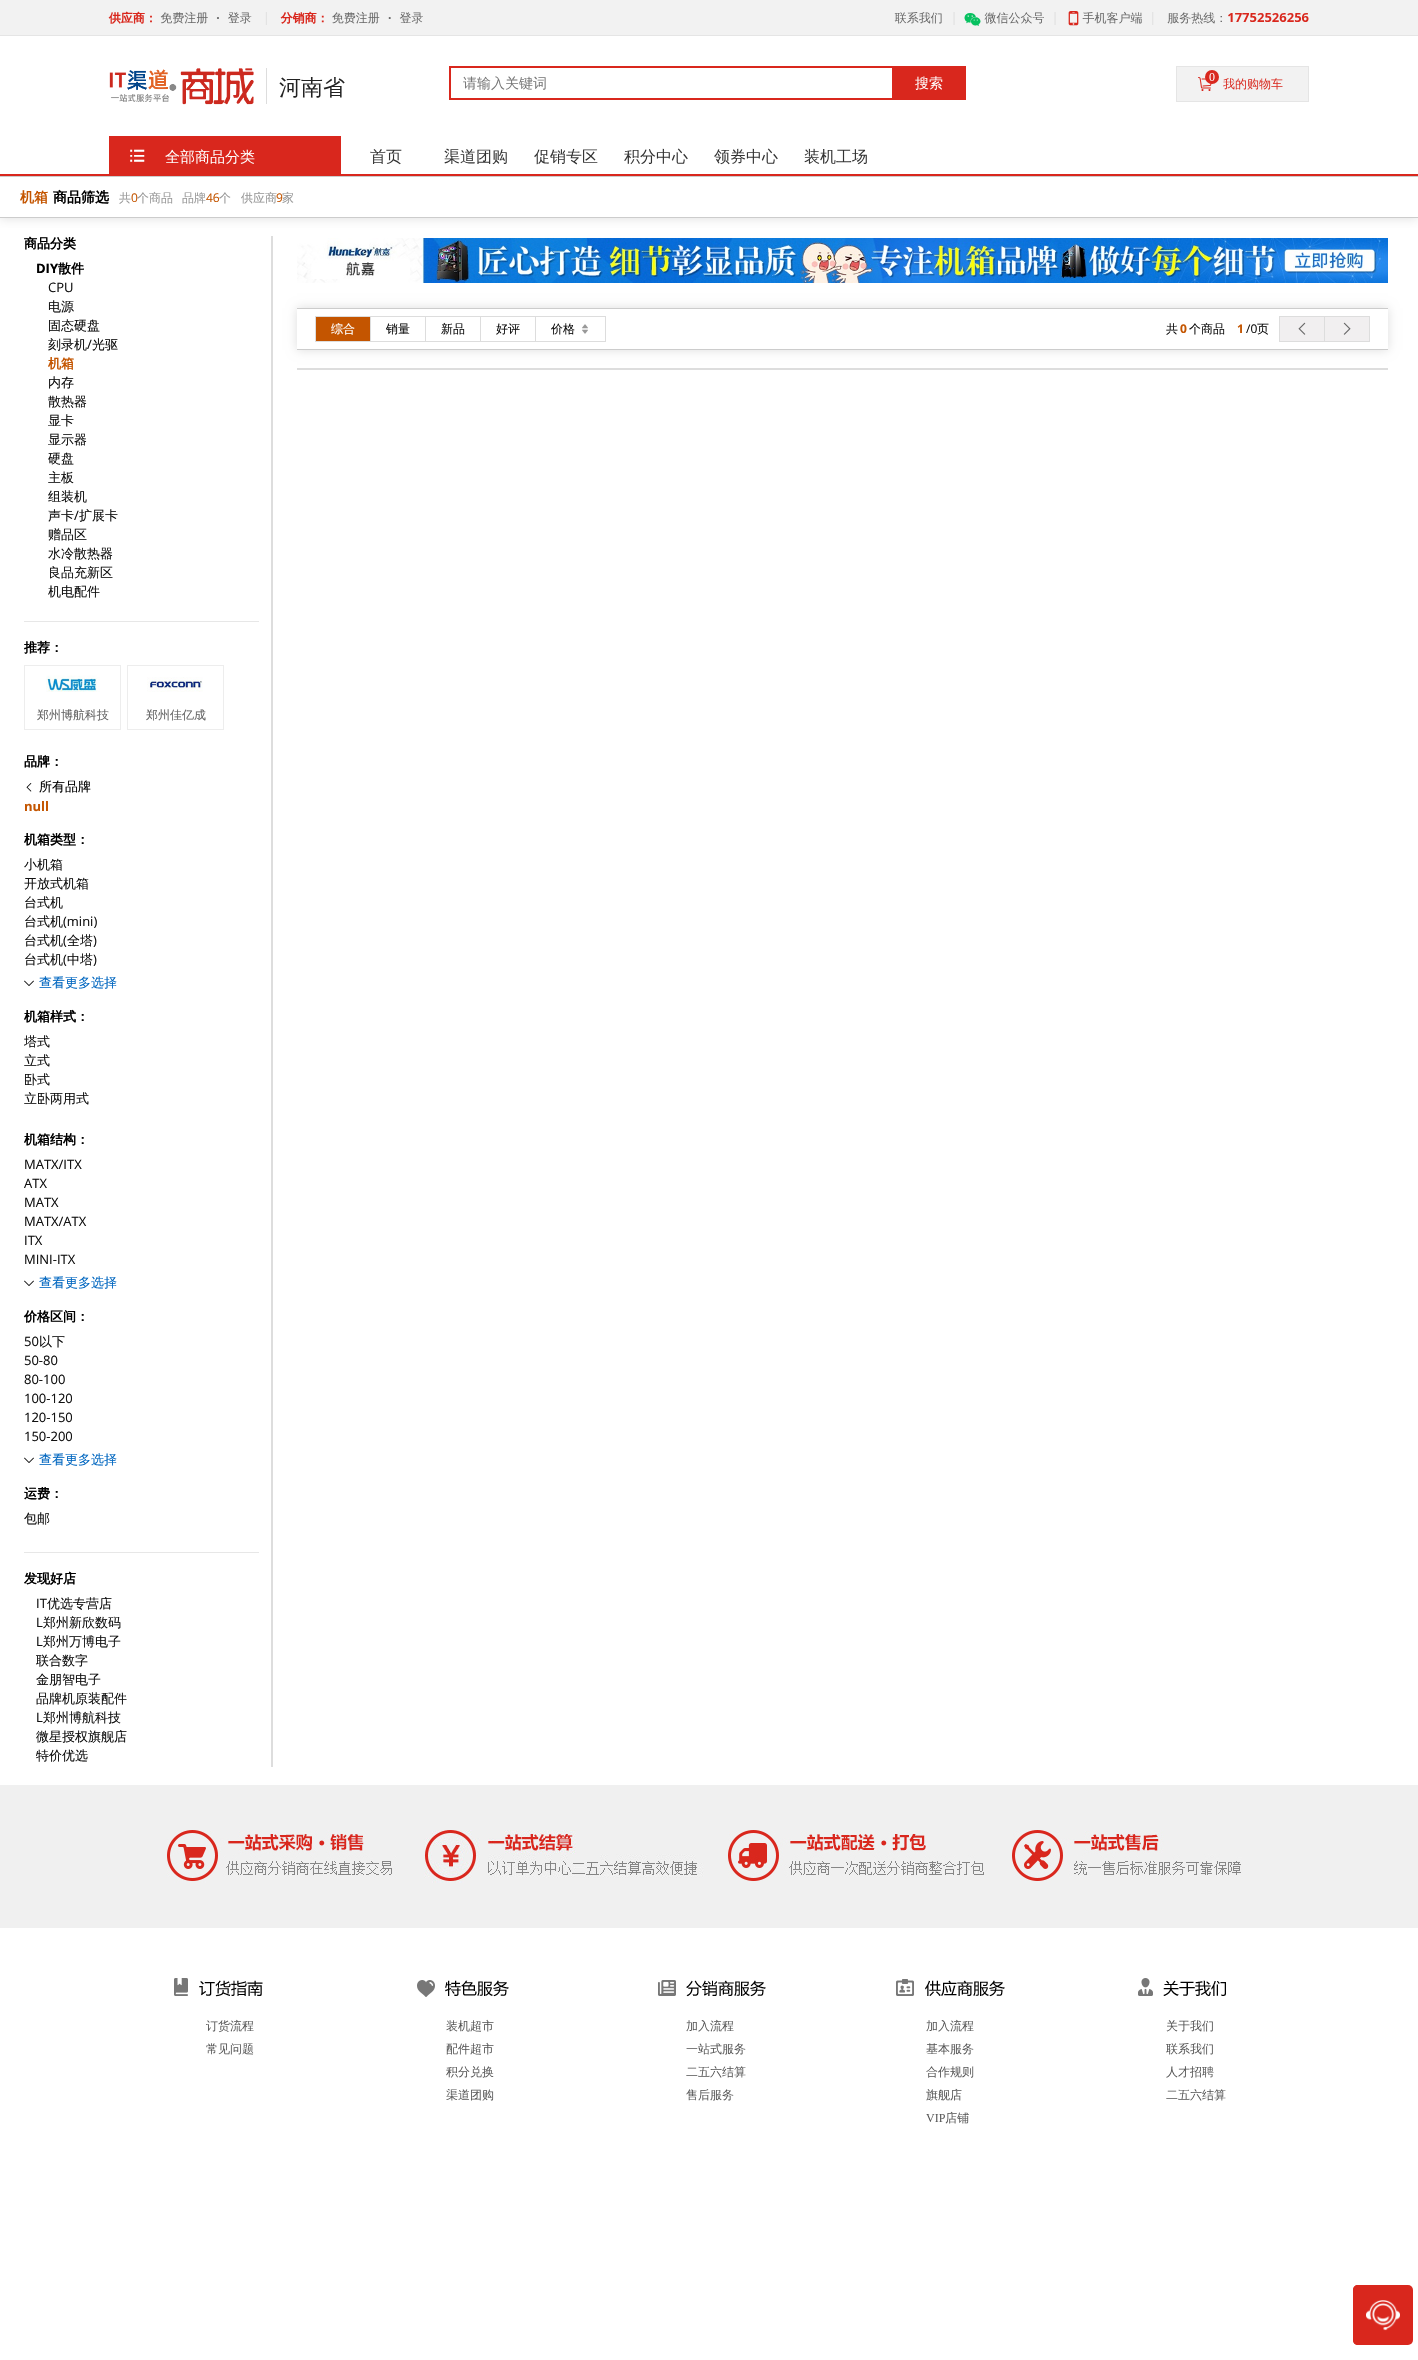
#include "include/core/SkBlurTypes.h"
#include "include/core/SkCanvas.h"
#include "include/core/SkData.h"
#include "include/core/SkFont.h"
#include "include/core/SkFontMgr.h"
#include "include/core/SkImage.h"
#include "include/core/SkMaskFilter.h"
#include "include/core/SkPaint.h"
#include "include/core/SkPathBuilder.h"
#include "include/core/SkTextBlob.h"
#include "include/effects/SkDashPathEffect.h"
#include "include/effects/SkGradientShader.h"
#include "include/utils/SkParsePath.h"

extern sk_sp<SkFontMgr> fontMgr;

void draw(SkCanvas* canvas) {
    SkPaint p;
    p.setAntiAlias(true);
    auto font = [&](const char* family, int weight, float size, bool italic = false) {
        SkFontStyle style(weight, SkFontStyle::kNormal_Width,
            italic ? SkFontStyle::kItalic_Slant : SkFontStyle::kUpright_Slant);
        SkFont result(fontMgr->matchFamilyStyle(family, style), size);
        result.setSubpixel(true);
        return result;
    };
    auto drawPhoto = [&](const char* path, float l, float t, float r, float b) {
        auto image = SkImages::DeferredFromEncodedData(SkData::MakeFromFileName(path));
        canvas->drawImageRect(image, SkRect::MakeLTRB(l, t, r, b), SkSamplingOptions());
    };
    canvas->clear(0xFFFFFFFF);
    canvas->save();
    canvas->clipRect(SkRect::MakeLTRB(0, 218, 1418, 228));
    p.setColor(0xFFDDDDDD);
    p.setMaskFilter(SkMaskFilter::MakeBlur(kNormal_SkBlurStyle, 5));
    canvas->drawRect(SkRect::MakeLTRB(0, 176, 1418, 218), p);
    p.setMaskFilter(nullptr);
    canvas->restore();
    drawPhoto("media/1.png", 0, 0, 1418, 176);
    p.setColor(0xFFCCCCCC);
    canvas->drawRect(SkRect::MakeLTRB(0, 176, 1418, 177), p);
    canvas->drawRect(SkRect::MakeLTRB(0, 217, 1418, 218), p);
    auto font1 = font("WenQuanYi Zen Hei", 700, 14);
    p.setColor(0xFFC45500);
    canvas->drawString("机箱", 20, 202, font1, p);
    p.setColor(0xFF000000);
    canvas->drawString("商品筛选", 53, 202, font1, p);
    auto font2 = font("WenQuanYi Zen Hei", 500, 12);
    p.setColor(0xFF999999);
    canvas->drawString("共", 119, 202, font2, p);
    auto font3 = font("Open Sans", 400, 12);
    p.setColor(0xFFC45500);
    canvas->drawString("0", 131, 202, font3, p);
    p.setColor(0xFF999999);
    canvas->drawString("个商品", 137, 202, font2, p);
    canvas->drawString("品牌", 182, 202, font2, p);
    p.setColor(0xFFC45500);
    canvas->drawString("46", 206, 202, font3, p);
    p.setColor(0xFF999999);
    canvas->drawString("个", 219, 202, font2, p);
    canvas->drawString("供应商", 241, 202, font2, p);
    p.setColor(0xFFC45500);
    canvas->drawString("9", 276, 202, font3, p);
    p.setColor(0xFF999999);
    canvas->drawString("家", 282, 202, font2, p);
    p.setColor(0xFFDDDDDD);
    canvas->drawRect(SkRect::MakeLTRB(271, 236, 273, 1767), p);
    p.setColor(0xFFE7E7E7);
    canvas->drawRect(SkRect::MakeLTRB(24, 621, 259, 622), p);
    auto font4 = font("WenQuanYi Zen Hei", 700, 13);
    p.setColor(0xFF000000);
    canvas->drawString("商品分类", 24, 248, font4, p);
    auto font5 = font("Open Sans", 700, 13);
    canvas->drawString("DIY", 36, 273, font5, p);
    canvas->drawString("散件", 58, 273, font4, p);
    auto font6 = font("Open Sans", 400, 13);
    p.setColor(0xFF111111);
    canvas->drawString("CPU", 48, 292, font6, p);
    auto font7 = font("WenQuanYi Zen Hei", 500, 13);
    {
        const struct { const char* s; float x, y; } items[] = {
            {"电源", 48, 311},
            {"固态硬盘", 48, 330},
            {"刻录机", 48, 349},
        };
        for (auto [s, x, y] : items) {
            canvas->drawString(s, x, y, font7, p);
        }
    }
    canvas->drawString("/", 87, 349, font6, p);
    canvas->drawString("光驱", 92, 349, font7, p);
    p.setColor(0xFFC45500);
    canvas->drawString("机箱", 48, 368, font4, p);
    p.setColor(0xFF111111);
    {
        const struct { const char* s; float x, y; } items[] = {
            {"内存", 48, 387},
            {"散热器", 48, 406},
            {"显卡", 48, 425},
            {"显示器", 48, 444},
            {"硬盘", 48, 463},
            {"主板", 48, 482},
            {"组装机", 48, 501},
            {"声卡", 48, 520},
        };
        for (auto [s, x, y] : items) {
            canvas->drawString(s, x, y, font7, p);
        }
    }
    canvas->drawString("/", 74, 520, font6, p);
    {
        const struct { const char* s; float x, y; } items[] = {
            {"扩展卡", 79, 520},
            {"赠品区", 48, 539},
            {"水冷散热器", 48, 558},
            {"良品充新区", 48, 577},
            {"机电配件", 48, 596},
        };
        for (auto [s, x, y] : items) {
            canvas->drawString(s, x, y, font7, p);
        }
    }
    p.setColor(0xFF000000);
    canvas->drawString("推荐：", 24, 652, font4, p);
    p.setStyle(SkPaint::kStroke_Style);
    p.setStrokeWidth(1);
    p.setColor(0xFFEDEDED);
    canvas->drawRect(SkRect::MakeLTRB(24.5f, 665.5f, 120.5f, 729.5f), p);
    drawPhoto("media/2.png", 46, 675, 100, 692);
    p.setStyle(SkPaint::kFill_Style);
    p.setColor(0xFF666666);
    canvas->drawString("郑州博航科技", 37, 719, font2, p);
    p.setStyle(SkPaint::kStroke_Style);
    p.setColor(0xFFEDEDED);
    canvas->drawRect(SkRect::MakeLTRB(127.5f, 665.5f, 223.5f, 729.5f), p);
    drawPhoto("media/3.png", 147, 677, 203, 692);
    p.setStyle(SkPaint::kFill_Style);
    p.setColor(0xFF666666);
    canvas->drawString("郑州佳亿成", 146, 719, font2, p);
    p.setColor(0xFF000000);
    canvas->drawString("品牌：", 24, 766, font4, p);
    drawPhoto("media/4.png", 26, 783, 32, 792);
    canvas->drawString("所有品牌", 39, 791, font7, p);
    p.setColor(0xFFC45500);
    canvas->drawString("null", 24, 811, font5, p);
    p.setColor(0xFF000000);
    canvas->drawString("机箱类型：", 24, 844, font4, p);
    p.setColor(0xFF111111);
    {
        const struct { const char* s; float x, y; } items[] = {
            {"小机箱", 24, 869},
            {"开放式机箱", 24, 888},
            {"台式机", 24, 907},
            {"台式机", 24, 926},
        };
        for (auto [s, x, y] : items) {
            canvas->drawString(s, x, y, font7, p);
        }
    }
    canvas->drawString("(mini)", 63, 926, font6, p);
    canvas->drawString("台式机 全塔", 24, 945, font7, p);
    canvas->drawString("(", 63, 945, font6, p);
    canvas->drawString(")", 93, 945, font6, p);
    canvas->drawString("台式机 中塔", 24, 964, font7, p);
    canvas->drawString("(", 63, 964, font6, p);
    canvas->drawString(")", 93, 964, font6, p);
    drawPhoto("media/5.png", 24, 980, 34, 986);
    p.setColor(0xFF0066C0);
    canvas->drawString("查看更多选择", 39, 987, font7, p);
    p.setColor(0xFF000000);
    canvas->drawString("机箱样式：", 24, 1021, font4, p);
    p.setColor(0xFF111111);
    {
        const struct { const char* s; float x, y; } items[] = {
            {"塔式", 24, 1046},
            {"立式", 24, 1065},
            {"卧式", 24, 1084},
            {"立卧两用式", 24, 1103},
        };
        for (auto [s, x, y] : items) {
            canvas->drawString(s, x, y, font7, p);
        }
    }
    p.setColor(0xFF000000);
    canvas->drawString("机箱结构：", 24, 1144, font4, p);
    p.setColor(0xFF111111);
    {
        const struct { const char* s; float x, y; } items[] = {
            {"MATX/ITX", 24, 1169},
            {"ATX", 24, 1188},
            {"MATX", 24, 1207},
            {"MATX/ATX", 24, 1226},
            {"ITX", 24, 1245},
            {"MINI-ITX", 24, 1264},
        };
        for (auto [s, x, y] : items) {
            canvas->drawString(s, x, y, font6, p);
        }
    }
    drawPhoto("media/5.png", 24, 1280, 34, 1286);
    p.setColor(0xFF0066C0);
    canvas->drawString("查看更多选择", 39, 1287, font7, p);
    p.setColor(0xFF000000);
    canvas->drawString("价格区间：", 24, 1321, font4, p);
    p.setColor(0xFF111111);
    canvas->drawString("50", 24, 1346, font6, p);
    canvas->drawString("以下", 39, 1346, font7, p);
    {
        const struct { const char* s; float x, y; } items[] = {
            {"50-80", 24, 1365},
            {"80-100", 24, 1384},
            {"100-120", 24, 1403},
            {"120-150", 24, 1422},
            {"150-200", 24, 1441},
        };
        for (auto [s, x, y] : items) {
            canvas->drawString(s, x, y, font6, p);
        }
    }
    drawPhoto("media/5.png", 24, 1457, 34, 1463);
    p.setColor(0xFF0066C0);
    canvas->drawString("查看更多选择", 39, 1464, font7, p);
    p.setColor(0xFF000000);
    canvas->drawString("运费：", 24, 1498, font4, p);
    p.setColor(0xFF111111);
    canvas->drawString("包邮", 24, 1523, font7, p);
    p.setColor(0xFFE7E7E7);
    canvas->drawRect(SkRect::MakeLTRB(24, 1552, 259, 1553), p);
    p.setColor(0xFF000000);
    canvas->drawString("发现好店", 24, 1583, font4, p);
    p.setColor(0xFF111111);
    canvas->drawString("IT", 36, 1608, font6, p);
    canvas->drawString("优选专营店", 47, 1608, font7, p);
    canvas->drawString("L", 36, 1627, font6, p);
    canvas->drawString("郑州新欣数码", 43, 1627, font7, p);
    canvas->drawString("L", 36, 1646, font6, p);
    {
        const struct { const char* s; float x, y; } items[] = {
            {"郑州万博电子", 43, 1646},
            {"联合数字", 36, 1665},
            {"金朋智电子", 36, 1684},
            {"品牌机原装配件", 36, 1703},
        };
        for (auto [s, x, y] : items) {
            canvas->drawString(s, x, y, font7, p);
        }
    }
    canvas->drawString("L", 36, 1722, font6, p);
    {
        const struct { const char* s; float x, y; } items[] = {
            {"郑州博航科技", 43, 1722},
            {"微星授权旗舰店", 36, 1741},
            {"特价优选", 36, 1760},
        };
        for (auto [s, x, y] : items) {
            canvas->drawString(s, x, y, font7, p);
        }
    }
    drawPhoto("media/6.png", 297, 238, 1388, 283);
    canvas->save();
    canvas->clipPath(SkPathBuilder(SkPathFillType::kEvenOdd).moveTo(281, 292).lineTo(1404, 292).lineTo(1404, 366).lineTo(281, 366).close().moveTo(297, 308).lineTo(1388, 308).lineTo(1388, 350).lineTo(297, 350).close().detach(), true);
    p.setColor(0xFFDDDDDD);
    p.setMaskFilter(SkMaskFilter::MakeBlur(kNormal_SkBlurStyle, 5));
    canvas->drawRect(SkRect::MakeLTRB(297, 308, 1388, 350), p);
    p.setMaskFilter(nullptr);
    canvas->restore();
    p.setColor(0xFFCCCCCC);
    canvas->drawRect(SkRect::MakeLTRB(297, 308, 1388, 309), p);
    canvas->drawRect(SkRect::MakeLTRB(297, 349, 1388, 350), p);
    p.setStyle(SkPaint::kStroke_Style);
    p.setColor(0xFFDDDDDD);
    canvas->drawRect(SkRect::MakeLTRB(315.5f, 316.5f, 605.5f, 341.5f), p);
    p.setStyle(SkPaint::kFill_Style);
    p.setColor(0xFFC45500);
    canvas->drawRect(SkRect::MakeLTRB(316, 317, 370, 341), p);
    p.setColor(0xFFDDDDDD);
    canvas->drawRect(SkRect::MakeLTRB(370, 317, 371, 341), p);
    p.setColor(0xFFFFFFFF);
    canvas->drawString("综合", 331, 333, font2, p);
    p.setColor(0xFFDDDDDD);
    canvas->drawRect(SkRect::MakeLTRB(425, 317, 426, 341), p);
    p.setColor(0xFF111111);
    canvas->drawString("销量", 386, 333, font2, p);
    p.setColor(0xFFDDDDDD);
    canvas->drawRect(SkRect::MakeLTRB(480, 317, 481, 341), p);
    p.setColor(0xFF111111);
    canvas->drawString("新品", 441, 333, font2, p);
    p.setColor(0xFFDDDDDD);
    canvas->drawRect(SkRect::MakeLTRB(535, 317, 536, 341), p);
    p.setColor(0xFF111111);
    canvas->drawString("好评", 496, 333, font2, p);
    canvas->drawString("价格", 551, 333, font2, p);
    drawPhoto("media/7.png", 582, 324, 588, 334);
    canvas->drawString("共", 1166, 333, font2, p);
    auto font8 = font("Open Sans", 700, 12);
    p.setColor(0xFFC45500);
    canvas->drawString("0", 1180, 333, font8, p);
    p.setColor(0xFF111111);
    canvas->drawString("个商品", 1189, 333, font2, p);
    p.setColor(0xFFC45500);
    canvas->drawString("1", 1237, 333, font8, p);
    p.setColor(0xFF111111);
    canvas->drawString("/0", 1246, 333, font3, p);
    canvas->drawString("页", 1257, 333, font2, p);
    p.setColor(0xFFF1EFF0);
    canvas->drawRect(SkRect::MakeLTRB(1279.5f, 316.5f, 1324.5f, 341.5f), p);
    p.setStyle(SkPaint::kStroke_Style);
    p.setColor(0xFFDDDDDD);
    canvas->drawRect(SkRect::MakeLTRB(1279.5f, 316.5f, 1324.5f, 341.5f), p);
    drawPhoto("media/8.png", 1298, 322, 1306, 335);
    p.setStyle(SkPaint::kFill_Style);
    {
        const struct { float l, t, r, b; SkColor color; } items[] = {
            {1325, 317, 1369, 341, 0xFFF1EFF0},
            {1325, 316, 1370, 317, 0xFFDDDDDD},
            {1369, 316, 1370, 342, 0xFFDDDDDD},
            {1325, 341, 1370, 342, 0xFFDDDDDD},
        };
        for (auto [l, t, r, b, color] : items) {
            p.setColor(color);
            canvas->drawRect(SkRect::MakeLTRB(l, t, r, b), p);
        }
    }
    drawPhoto("media/9.png", 1343, 322, 1351, 335);
    canvas->drawRect(SkRect::MakeLTRB(297, 368, 1388, 370), p);
    drawPhoto("media/10.png", 0, 1785, 1418, 2124);
    p.setColor(0xFFD9271D);
    canvas->drawRoundRect(SkRect::MakeLTRB(1353, 2285, 1413, 2345), 5, 5, p);
    canvas->drawPath(SkPathBuilder().moveTo(1358, 2285).lineTo(1358, 2345).cubicTo(1355, 2345, 1353, 2343, 1353, 2340).lineTo(1353, 2290).cubicTo(1353, 2287, 1355, 2285, 1358, 2285).close().detach(), p);
    drawPhoto("media/11.png", 1366, 2300, 1400, 2331);
}
